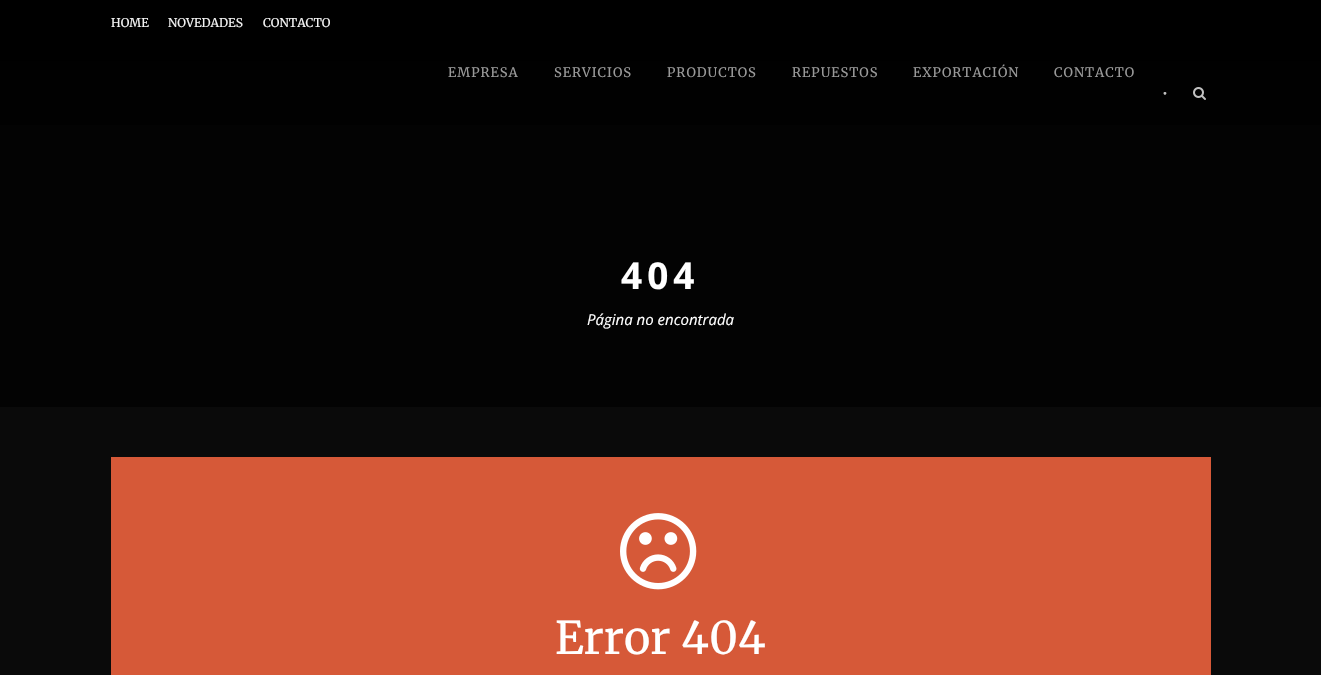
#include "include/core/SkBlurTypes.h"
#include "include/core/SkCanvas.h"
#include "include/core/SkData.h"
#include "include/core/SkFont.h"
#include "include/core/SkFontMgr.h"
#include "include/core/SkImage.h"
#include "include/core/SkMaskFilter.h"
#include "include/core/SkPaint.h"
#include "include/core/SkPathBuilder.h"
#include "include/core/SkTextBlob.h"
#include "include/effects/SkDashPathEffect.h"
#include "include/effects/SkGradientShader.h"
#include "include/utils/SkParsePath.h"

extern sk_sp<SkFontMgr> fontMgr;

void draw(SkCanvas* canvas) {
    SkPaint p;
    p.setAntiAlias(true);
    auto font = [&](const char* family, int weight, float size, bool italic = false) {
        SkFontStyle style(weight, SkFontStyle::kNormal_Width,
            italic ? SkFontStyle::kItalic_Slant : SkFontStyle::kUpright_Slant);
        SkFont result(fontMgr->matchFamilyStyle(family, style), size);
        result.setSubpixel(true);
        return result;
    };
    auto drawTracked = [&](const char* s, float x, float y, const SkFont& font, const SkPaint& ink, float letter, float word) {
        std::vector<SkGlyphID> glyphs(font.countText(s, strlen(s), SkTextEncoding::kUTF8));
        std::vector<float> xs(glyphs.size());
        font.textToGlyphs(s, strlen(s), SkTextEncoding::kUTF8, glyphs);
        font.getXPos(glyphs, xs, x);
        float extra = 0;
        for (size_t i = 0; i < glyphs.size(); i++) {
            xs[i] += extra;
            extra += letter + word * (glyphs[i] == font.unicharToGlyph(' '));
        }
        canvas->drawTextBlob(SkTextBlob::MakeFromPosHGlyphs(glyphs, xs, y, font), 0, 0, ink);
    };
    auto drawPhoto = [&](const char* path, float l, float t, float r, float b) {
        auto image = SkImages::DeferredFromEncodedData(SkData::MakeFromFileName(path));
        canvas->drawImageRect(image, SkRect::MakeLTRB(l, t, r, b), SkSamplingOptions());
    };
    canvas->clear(0xFF0A0A0A);
    p.setColor(0xFF000000);
    canvas->drawRect(SkRect::MakeLTRB(0, 0, 1321, 61), p);
    auto font1 = font("Merriweather", 400, 12);
    p.setColor(0xFFF3F3F3);
    {
        const struct { const char* s; float x, y; } items[] = {
            {"HOME", 111, 27},
            {"NOVEDADES", 168, 27},
            {"CONTACTO", 263, 27},
        };
        for (auto [s, x, y] : items) {
            canvas->drawString(s, x, y, font1, p);
        }
    }
    p.setColor(0xFF010101);
    canvas->drawRect(SkRect::MakeLTRB(0, 61, 1321, 125), p);
    auto font2 = font("Merriweather", 400, 13);
    p.setColor(0xFF999999);
    {
        const struct { const char* s; float x, y; } items[] = {
            {"EMPRESA", 448, 77},
            {"SERVICIOS", 554, 77},
            {"PRODUCTOS", 667, 77},
            {"REPUESTOS", 792, 77},
            {"EXPORTACIÓN", 913, 77},
            {"CONTACTO", 1054, 77},
        };
        for (auto [s, x, y] : items) {
            drawTracked(s, x, y, font2, p, 1, 0);
        }
    }
    auto font3 = font("Merriweather", 400, 14);
    p.setColor(0xFFC1C1C1);
    canvas->drawString("•", 1162, 98, font3, p);
    drawPhoto("media/1.png", 1193, 87, 1206, 100);
    p.setColor(0xFF030303);
    canvas->drawRect(SkRect::MakeLTRB(0, 125, 1321, 407), p);
    auto font4 = font("Open Sans", 700, 37);
    p.setColor(0xFFFFFFFF);
    drawTracked("404", 621, 289, font4, p, 5, 0);
    auto font5 = font("Open Sans", 400, 15, true);
    canvas->drawString("Página no encontrada", 587, 325, font5, p);
    p.setColor(0xFFD65938);
    canvas->drawRect(SkRect::MakeLTRB(111, 457, 1211, 675), p);
    drawPhoto("media/2.png", 620, 513, 697, 590);
    auto font6 = font("Merriweather", 400, 45);
    p.setColor(0xFFFFFFFF);
    canvas->drawString("Error 404", 555, 654, font6, p);
}
